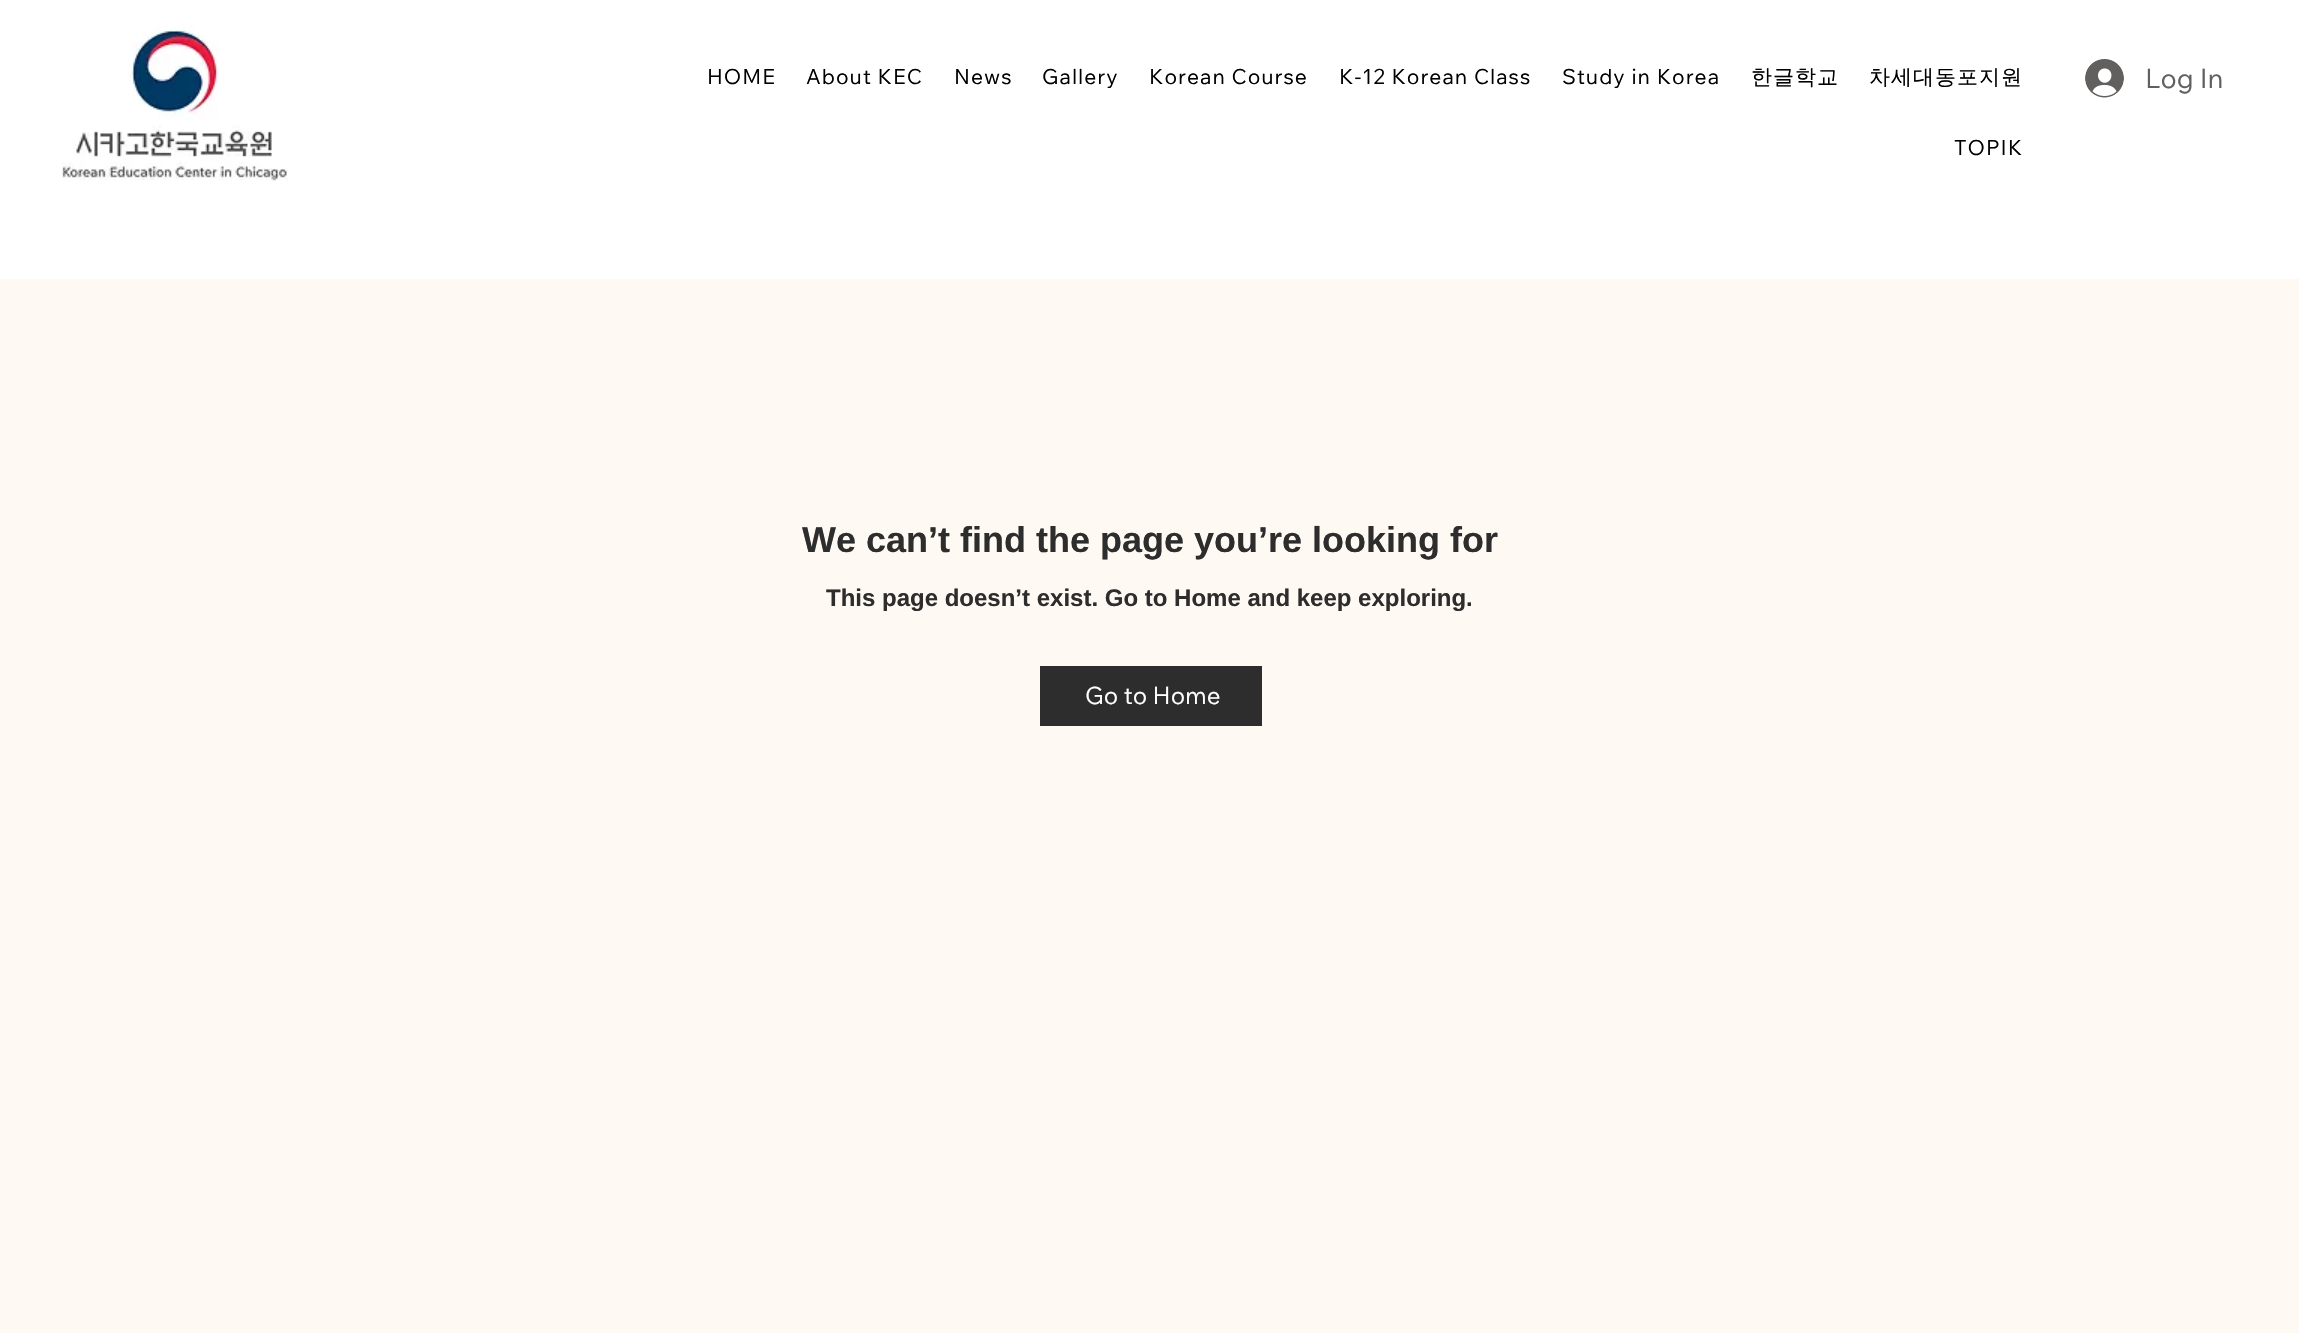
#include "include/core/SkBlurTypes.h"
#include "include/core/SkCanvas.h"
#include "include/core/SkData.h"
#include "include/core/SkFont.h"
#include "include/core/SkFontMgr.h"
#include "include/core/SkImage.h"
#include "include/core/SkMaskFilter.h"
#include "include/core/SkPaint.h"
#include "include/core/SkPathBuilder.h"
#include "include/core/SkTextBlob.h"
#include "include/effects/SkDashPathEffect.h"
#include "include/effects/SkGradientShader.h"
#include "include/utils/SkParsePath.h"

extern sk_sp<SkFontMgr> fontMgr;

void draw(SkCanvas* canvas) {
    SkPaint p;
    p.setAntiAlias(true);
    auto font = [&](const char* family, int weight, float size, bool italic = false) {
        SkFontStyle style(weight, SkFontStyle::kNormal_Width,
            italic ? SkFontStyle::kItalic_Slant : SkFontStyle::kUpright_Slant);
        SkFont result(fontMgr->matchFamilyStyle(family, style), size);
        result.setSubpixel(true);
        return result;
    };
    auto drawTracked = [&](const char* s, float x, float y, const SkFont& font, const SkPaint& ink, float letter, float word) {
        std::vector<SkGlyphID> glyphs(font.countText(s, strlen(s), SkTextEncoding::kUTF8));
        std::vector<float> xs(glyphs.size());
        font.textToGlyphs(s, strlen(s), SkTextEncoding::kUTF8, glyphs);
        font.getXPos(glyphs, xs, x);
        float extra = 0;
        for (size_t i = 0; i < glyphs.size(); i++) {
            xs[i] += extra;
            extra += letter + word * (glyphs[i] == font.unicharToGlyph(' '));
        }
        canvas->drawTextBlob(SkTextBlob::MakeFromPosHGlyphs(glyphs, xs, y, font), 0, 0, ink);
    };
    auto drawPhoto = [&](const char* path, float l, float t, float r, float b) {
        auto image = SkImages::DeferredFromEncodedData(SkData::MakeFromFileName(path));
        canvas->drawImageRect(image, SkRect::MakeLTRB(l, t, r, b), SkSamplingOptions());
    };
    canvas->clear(0xFFFFF9F3);
    p.setColor(0xFFFFFFFF);
    canvas->drawRect(SkRect::MakeLTRB(0, 0, 2299, 279), p);
    drawPhoto("media/1.png", 61, 24, 288, 181);
    auto font1 = font("Wix Madefor Text", 400, 21);
    p.setColor(0xFF000000);
    {
        const struct { const char* s; float x, y; } items[] = {
            {"HOME", 707, 84},
            {"About KEC", 806, 84},
            {"News", 954, 84},
            {"Gallery", 1042, 84},
            {"Korean Course", 1149, 84},
            {"K-12 Korean Class", 1339, 84},
            {"Study in Korea", 1562, 84},
        };
        for (auto [s, x, y] : items) {
            drawTracked(s, x, y, font1, p, 1, 0);
        }
    }
    auto font2 = font("WenQuanYi Zen Hei", 500, 21);
    drawTracked("한글학교", 1751, 84, font2, p, 1, 0);
    drawTracked("차세대동포지원", 1869, 84, font2, p, 1, 0);
    drawTracked("TOPIK", 1954, 155, font1, p, 1, 0);
    drawPhoto("media/2.png", 2085, 59, 2124, 98);
    auto font3 = font("Wix Madefor Text", 400, 27);
    p.setColor(0xFF62605F);
    canvas->drawString("Log In", 2145, 88, font3, p);
    auto font4 = font("Liberation Sans", 700, 36);
    p.setColor(0xFF2E2D2D);
    canvas->drawString("We can’t find the page you’re looking for", 802, 552, font4, p);
    auto font5 = font("Liberation Sans", 700, 24);
    canvas->drawString("This page doesn’t exist. Go to Home and keep exploring.", 826, 606, font5, p);
    canvas->drawRect(SkRect::MakeLTRB(1040, 666, 1262, 726), p);
    auto font6 = font("Wix Madefor Text", 400, 24);
    p.setColor(0xFFFFFFFF);
    canvas->drawString("Go to Home", 1085, 704, font6, p);
}
